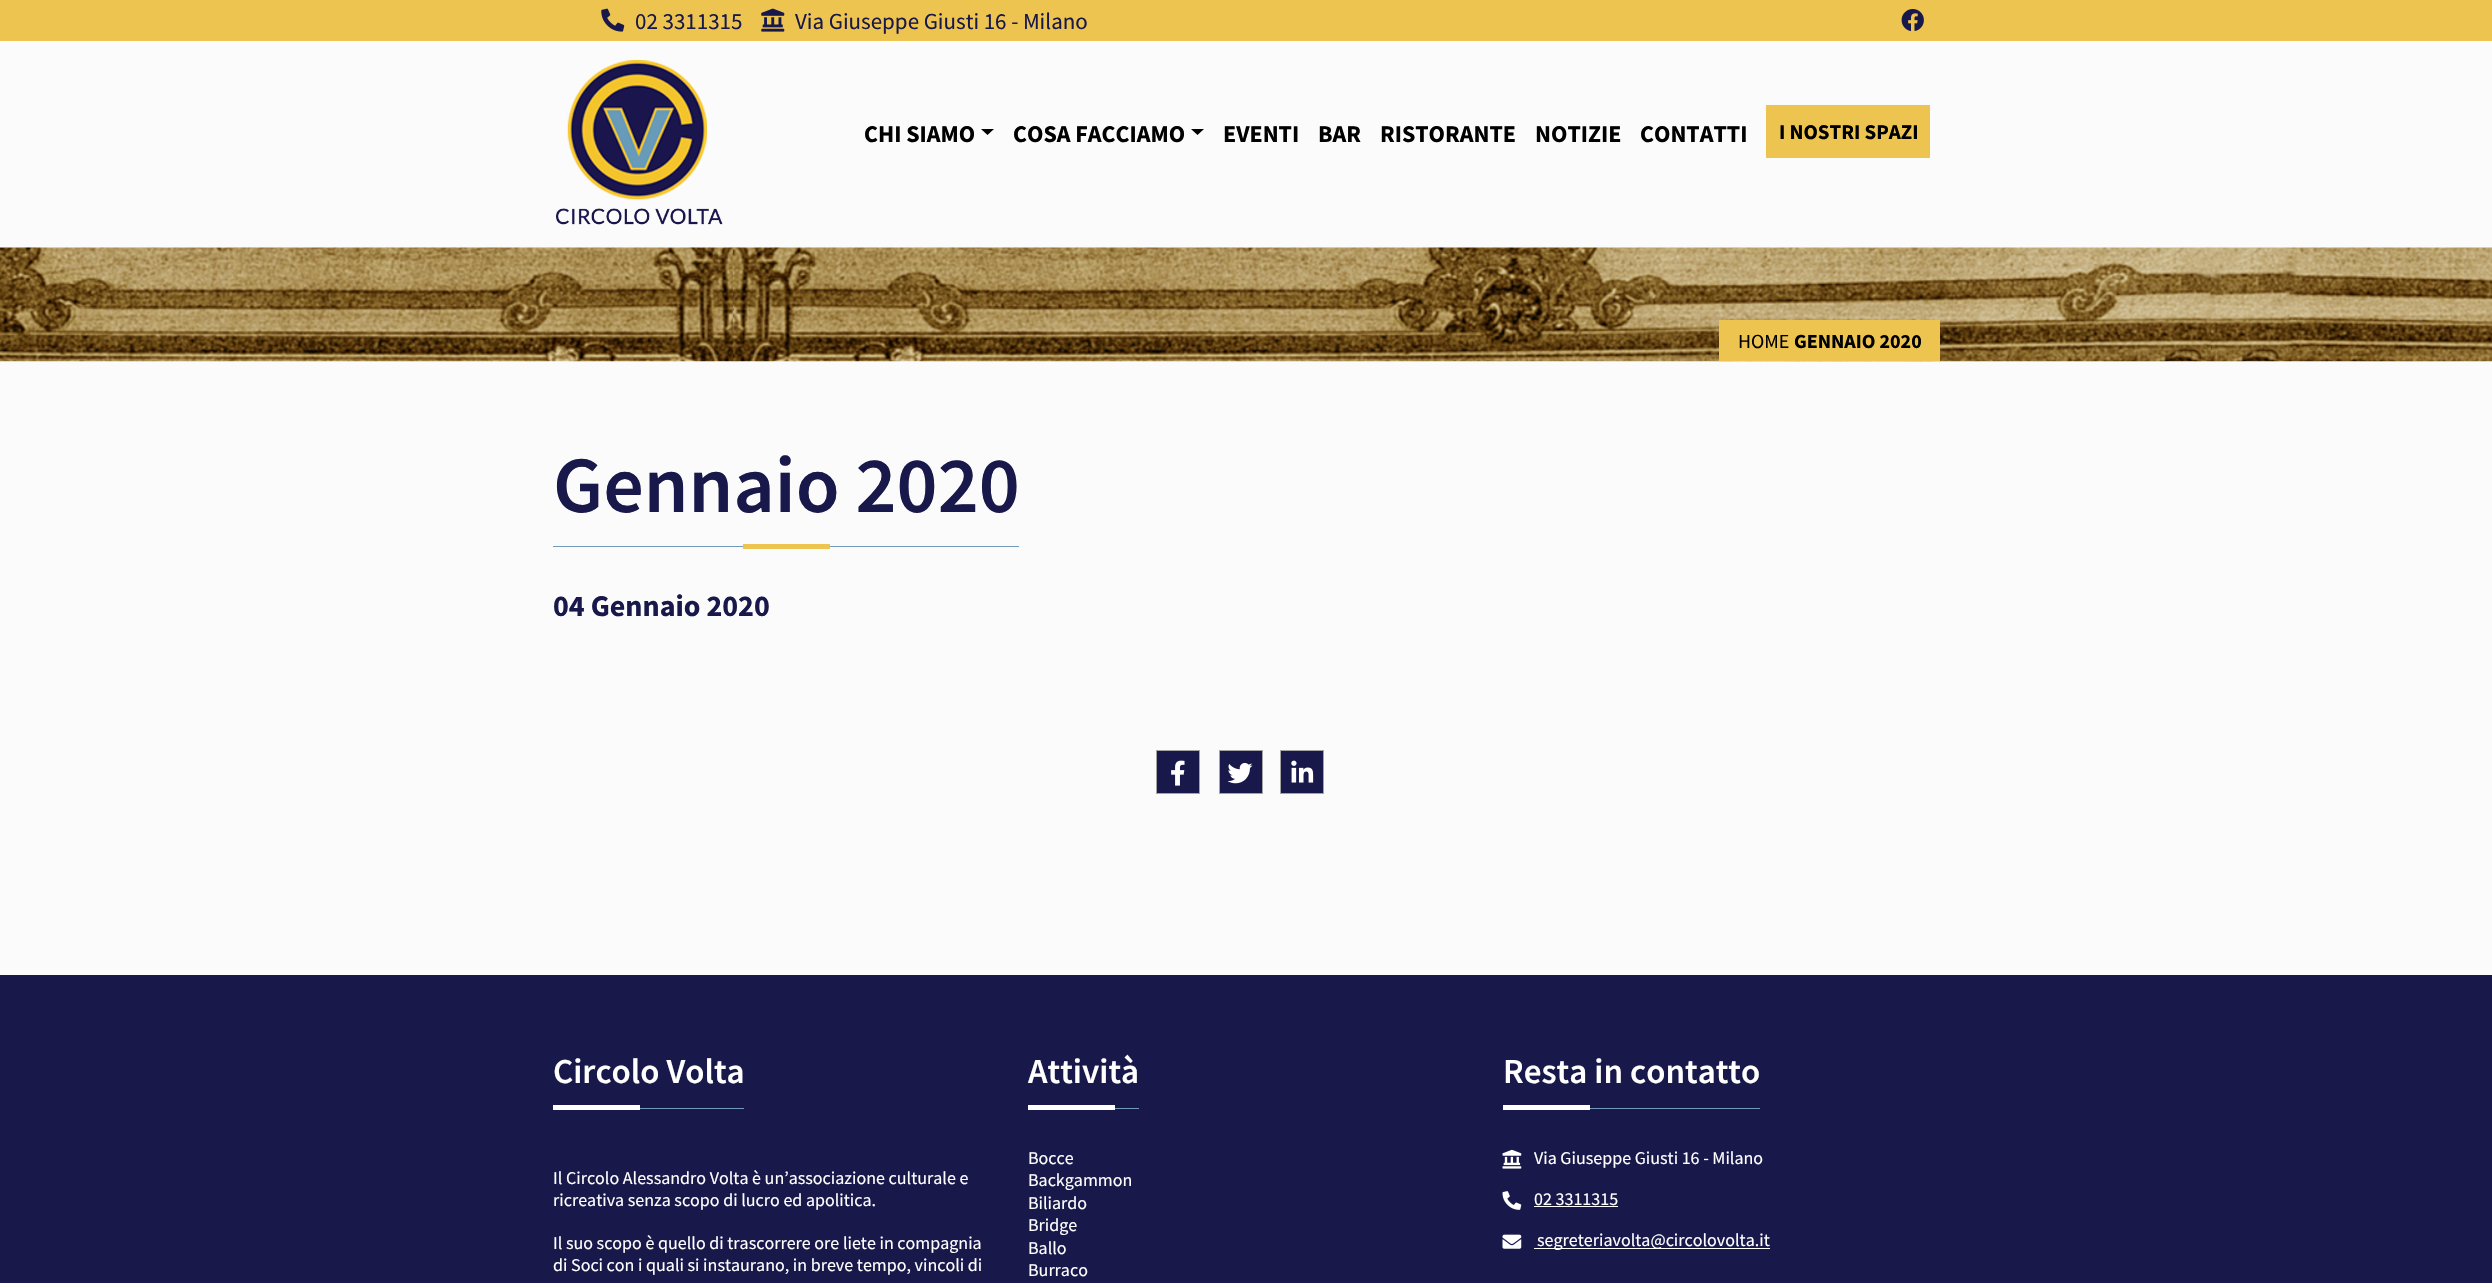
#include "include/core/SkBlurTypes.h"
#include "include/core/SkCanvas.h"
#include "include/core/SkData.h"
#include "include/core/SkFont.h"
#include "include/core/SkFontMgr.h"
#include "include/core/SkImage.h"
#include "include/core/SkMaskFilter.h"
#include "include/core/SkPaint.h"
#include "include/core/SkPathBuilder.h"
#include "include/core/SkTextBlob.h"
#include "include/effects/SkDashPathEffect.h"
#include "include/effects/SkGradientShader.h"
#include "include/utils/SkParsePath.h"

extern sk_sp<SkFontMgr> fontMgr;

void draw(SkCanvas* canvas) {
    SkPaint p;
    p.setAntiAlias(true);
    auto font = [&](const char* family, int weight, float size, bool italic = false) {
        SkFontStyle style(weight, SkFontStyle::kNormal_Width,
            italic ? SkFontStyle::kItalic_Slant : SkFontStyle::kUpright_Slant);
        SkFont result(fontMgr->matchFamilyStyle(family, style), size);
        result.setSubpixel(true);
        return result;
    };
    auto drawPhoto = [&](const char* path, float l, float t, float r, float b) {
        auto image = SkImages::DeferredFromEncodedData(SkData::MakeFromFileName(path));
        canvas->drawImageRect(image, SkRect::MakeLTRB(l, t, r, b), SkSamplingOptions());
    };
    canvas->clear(0xFFFBFBFB);
    p.setColor(0xFFEDC44F);
    canvas->drawRect(SkRect::MakeLTRB(0, 0, 2492, 41), p);
    drawPhoto("media/1.png", 601, 8, 625, 32);
    auto font1 = font("Source Sans Pro", 400, 23);
    p.setColor(0xFF18184A);
    canvas->drawString("02 3311315", 635, 29, font1, p);
    drawPhoto("media/2.png", 761, 8, 785, 32);
    canvas->drawString("Via Giuseppe Giusti 16 - Milano", 795, 29, font1, p);
    drawPhoto("media/3.png", 1901, 9, 1924, 32);
    drawPhoto("media/4.png", 556, 60, 723, 225);
    auto font2 = font("Source Sans Pro", 700, 24);
    p.setColor(0xFF000000);
    canvas->drawString("CHI SIAMO", 864, 142, font2, p);
    canvas->drawPath(SkPathBuilder().moveTo(981, 129).lineTo(994, 129).lineTo(987.5f, 135).close().detach(), p);
    canvas->drawString("COSA FACCIAMO", 1013, 142, font2, p);
    canvas->drawPath(SkPathBuilder().moveTo(1191, 129).lineTo(1204, 129).lineTo(1197.5f, 135).close().detach(), p);
    {
        const struct { const char* s; float x, y; } items[] = {
            {"EVENTI", 1223, 142},
            {"BAR", 1318, 142},
            {"RISTORANTE", 1380, 142},
            {"NOTIZIE", 1535, 142},
            {"CONTATTI", 1640, 142},
        };
        for (auto [s, x, y] : items) {
            canvas->drawString(s, x, y, font2, p);
        }
    }
    p.setColor(0xFFEDC44F);
    canvas->drawRect(SkRect::MakeLTRB(1766, 105, 1930, 158), p);
    auto font3 = font("Source Sans Pro", 700, 21);
    p.setColor(0xFF000000);
    canvas->drawString("I NOSTRI SPAZI", 1779, 139, font3, p);
    drawPhoto("media/5.png", 0, 247, 2492, 362);
    p.setColor(0xFFEDC44F);
    canvas->drawRect(SkRect::MakeLTRB(1719, 320, 1940, 361), p);
    auto font4 = font("Source Sans Pro", 400, 20);
    p.setColor(0xFF000000);
    canvas->drawString("HOME", 1738, 348, font4, p);
    auto font5 = font("Source Sans Pro", 700, 20);
    canvas->drawString("GENNAIO 2020", 1794, 348, font5, p);
    p.setColor(0xFF739AB7);
    canvas->drawRect(SkRect::MakeLTRB(553, 546, 1019, 547), p);
    auto font6 = font("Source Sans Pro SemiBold", 600, 80);
    p.setColor(0xFF18184A);
    canvas->drawString("Gennaio 2020", 553, 512, font6, p);
    p.setColor(0xFFEDC44F);
    canvas->drawRect(SkRect::MakeLTRB(743, 544, 830, 549), p);
    auto font7 = font("Source Sans Pro", 700, 30);
    p.setColor(0xFF18184A);
    canvas->drawString("04 Gennaio 2020", 553, 616, font7, p);
    canvas->drawRect(SkRect::MakeLTRB(1156.5f, 750.5f, 1199.5f, 793.5f), p);
    p.setStyle(SkPaint::kStroke_Style);
    p.setStrokeWidth(1);
    p.setColor(0xFFA4A4A4);
    canvas->drawRect(SkRect::MakeLTRB(1156.5f, 750.5f, 1199.5f, 793.5f), p);
    drawPhoto("media/6.png", 1171, 760, 1185, 786);
    p.setStyle(SkPaint::kFill_Style);
    p.setColor(0xFF18184A);
    canvas->drawRect(SkRect::MakeLTRB(1219.5f, 750.5f, 1262.5f, 793.5f), p);
    p.setStyle(SkPaint::kStroke_Style);
    p.setColor(0xFFA4A4A4);
    canvas->drawRect(SkRect::MakeLTRB(1219.5f, 750.5f, 1262.5f, 793.5f), p);
    drawPhoto("media/7.png", 1227, 763, 1253, 784);
    p.setStyle(SkPaint::kFill_Style);
    p.setColor(0xFF18184A);
    canvas->drawRect(SkRect::MakeLTRB(1280.5f, 750.5f, 1323.5f, 793.5f), p);
    p.setStyle(SkPaint::kStroke_Style);
    p.setColor(0xFFA4A4A4);
    canvas->drawRect(SkRect::MakeLTRB(1280.5f, 750.5f, 1323.5f, 793.5f), p);
    drawPhoto("media/8.png", 1291, 760, 1314, 783);
    p.setStyle(SkPaint::kFill_Style);
    p.setColor(0xFF18184A);
    canvas->drawRect(SkRect::MakeLTRB(0, 975, 2492, 1283), p);
    p.setColor(0xFF739AB7);
    canvas->drawRect(SkRect::MakeLTRB(640, 1108, 744, 1109), p);
    auto font8 = font("Source Sans Pro SemiBold", 600, 35);
    p.setColor(0xFFFFFFFF);
    canvas->drawString("Circolo Volta", 553, 1083, font8, p);
    canvas->drawRect(SkRect::MakeLTRB(553, 1105, 640, 1110), p);
    auto font9 = font("Source Sans Pro", 400, 18);
    {
        const struct { const char* s; float x, y; } items[] = {
            {"Il Circolo Alessandro Volta è un’associazione culturale e", 553, 1184},
            {"ricreativa senza scopo di lucro ed apolitica.", 553, 1206},
            {"Il suo scopo è quello di trascorrere ore liete in compagnia", 553, 1249},
            {"di Soci con i quali si instaurano, in breve tempo, vincoli di", 553, 1271},
        };
        for (auto [s, x, y] : items) {
            canvas->drawString(s, x, y, font9, p);
        }
    }
    p.setColor(0xFF739AB7);
    canvas->drawRect(SkRect::MakeLTRB(1115, 1108, 1139, 1109), p);
    p.setColor(0xFFFFFFFF);
    canvas->drawString("Attività", 1028, 1083, font8, p);
    canvas->drawRect(SkRect::MakeLTRB(1028, 1105, 1115, 1110), p);
    {
        const struct { const char* s; float x, y; } items[] = {
            {"Bocce", 1028, 1164},
            {"Backgammon", 1028, 1186},
            {"Biliardo", 1028, 1209},
            {"Bridge", 1028, 1231},
            {"Ballo", 1028, 1254},
            {"Burraco", 1028, 1276},
        };
        for (auto [s, x, y] : items) {
            canvas->drawString(s, x, y, font9, p);
        }
    }
    p.setColor(0xFF739AB7);
    canvas->drawRect(SkRect::MakeLTRB(1590, 1108, 1760, 1109), p);
    p.setColor(0xFFFFFFFF);
    canvas->drawString("Resta in contatto", 1503, 1083, font8, p);
    canvas->drawRect(SkRect::MakeLTRB(1503, 1105, 1590, 1110), p);
    drawPhoto("media/9.png", 1502, 1149, 1522, 1169);
    canvas->drawString("Via Giuseppe Giusti 16 - Milano", 1534, 1164, font9, p);
    drawPhoto("media/10.png", 1502, 1191, 1522, 1210);
    canvas->drawString("02 3311315", 1534, 1205, font9, p);
    canvas->drawRect(SkRect::MakeLTRB(1534, 1206, 1618, 1207), p);
    drawPhoto("media/11.png", 1502, 1234, 1522, 1249);
    canvas->drawRect(SkRect::MakeLTRB(1534, 1248, 1770, 1249), p);
    canvas->drawString("segreteriavolta@circolovolta.it", 1537, 1246, font9, p);
}
